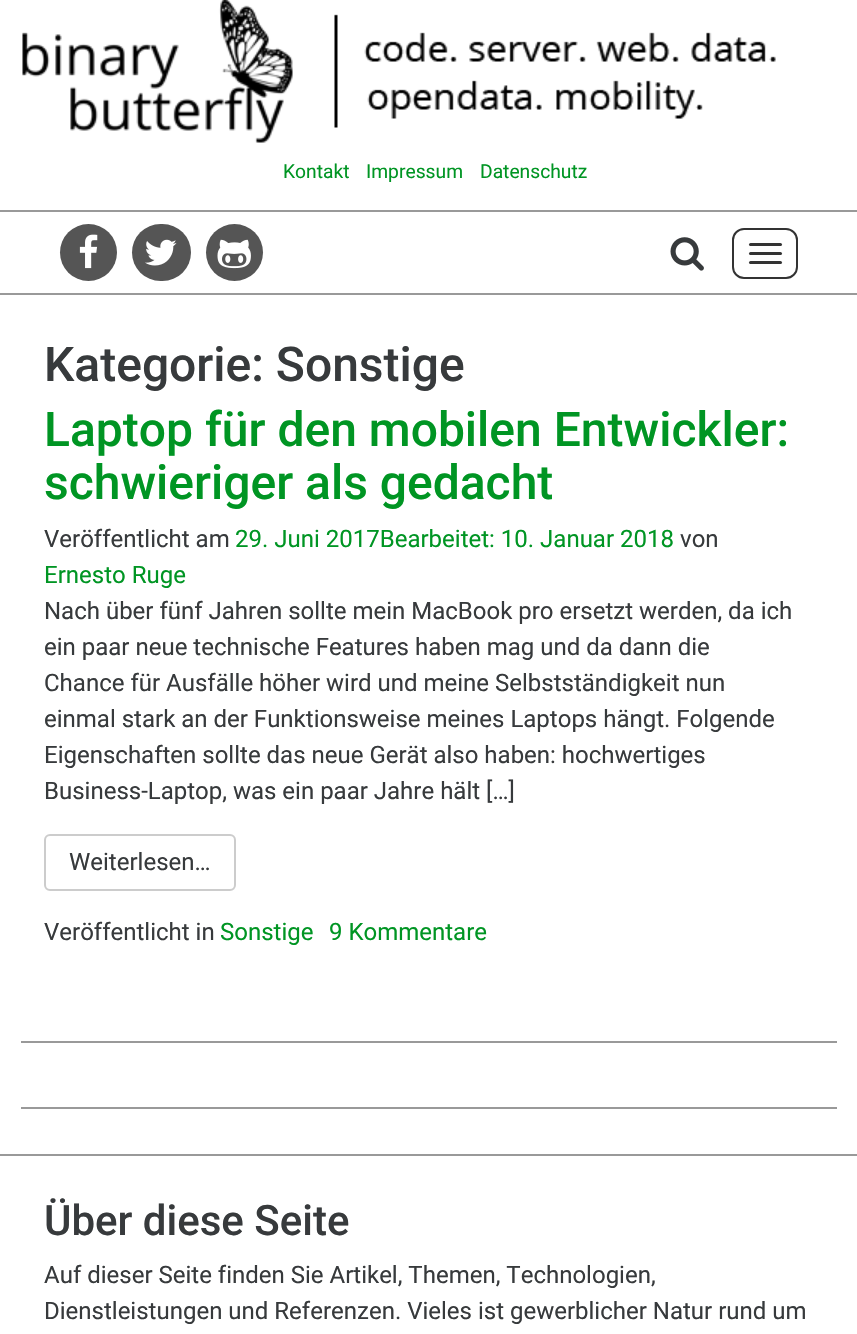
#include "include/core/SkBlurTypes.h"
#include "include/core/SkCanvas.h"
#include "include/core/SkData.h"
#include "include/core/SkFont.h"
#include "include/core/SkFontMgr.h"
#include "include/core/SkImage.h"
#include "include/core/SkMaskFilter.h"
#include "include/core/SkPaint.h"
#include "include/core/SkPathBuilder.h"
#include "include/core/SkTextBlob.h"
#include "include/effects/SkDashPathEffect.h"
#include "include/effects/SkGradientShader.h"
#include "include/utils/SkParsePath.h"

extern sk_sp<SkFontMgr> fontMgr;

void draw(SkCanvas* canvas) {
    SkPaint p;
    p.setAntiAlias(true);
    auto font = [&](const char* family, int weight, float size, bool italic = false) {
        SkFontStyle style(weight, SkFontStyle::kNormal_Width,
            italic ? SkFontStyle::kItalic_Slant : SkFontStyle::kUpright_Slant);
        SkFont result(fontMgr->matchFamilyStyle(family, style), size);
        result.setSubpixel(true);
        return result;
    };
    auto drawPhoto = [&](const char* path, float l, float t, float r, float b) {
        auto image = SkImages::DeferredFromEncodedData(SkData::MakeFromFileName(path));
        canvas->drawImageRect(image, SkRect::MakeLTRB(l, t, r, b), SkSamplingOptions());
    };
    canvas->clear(0xFFFFFFFF);
    drawPhoto("media/1.png", 22, 0, 776, 143);
    auto font1 = font("Roboto", 400, 19.25f);
    p.setColor(0xFF009523);
    {
        const struct { const char* s; float x, y; } items[] = {
            {"Kontakt", 283, 178},
            {"Impressum", 366, 178},
            {"Datenschutz", 480, 178},
        };
        for (auto [s, x, y] : items) {
            canvas->drawString(s, x, y, font1, p);
        }
    }
    p.setColor(0xFF999999);
    canvas->drawRect(SkRect::MakeLTRB(0, 210, 857, 212), p);
    canvas->drawRect(SkRect::MakeLTRB(0, 293, 857, 295), p);
    p.setColor(0xFF555555);
    canvas->drawCircle(88.5f, 252.5f, 28.5f, p);
    drawPhoto("media/2.png", 79, 234, 98, 269);
    canvas->drawRoundRect(SkRect::MakeLTRB(132, 224, 191, 281), 28.5f, 28.5f, p);
    drawPhoto("media/3.png", 145, 239, 177, 266);
    canvas->drawCircle(234.5f, 252.5f, 28.5f, p);
    drawPhoto("media/4.png", 217, 239, 251, 269);
    drawPhoto("media/5.png", 670, 237, 704, 271);
    p.setStyle(SkPaint::kStroke_Style);
    p.setStrokeWidth(2);
    p.setColor(0xFF333333);
    canvas->drawRoundRect(SkRect::MakeLTRB(733, 229, 797, 278), 11, 11, p);
    p.setStyle(SkPaint::kFill_Style);
    canvas->drawRoundRect(SkRect::MakeLTRB(749, 243, 782, 246), 1.5f, 1.5f, p);
    canvas->drawRoundRect(SkRect::MakeLTRB(749, 252, 782, 255), 1.5f, 1.5f, p);
    canvas->drawRoundRect(SkRect::MakeLTRB(749, 261, 782, 264), 1.5f, 1.5f, p);
    auto font2 = font("Roboto", 500, 48);
    p.setColor(0xFF373A3C);
    canvas->drawString("Kategorie: Sonstige", 44, 381, font2, p);
    p.setColor(0xFF009523);
    canvas->drawString("Laptop für den mobilen Entwickler:", 44, 446, font2, p);
    canvas->drawString("schwieriger als gedacht", 44, 499, font2, p);
    auto font3 = font("Roboto", 400, 24);
    p.setColor(0xFF373A3C);
    canvas->drawString("Veröffentlicht am", 44, 547, font3, p);
    p.setColor(0xFF009523);
    canvas->drawString("29. Juni 2017Bearbeitet: 10. Januar 2018", 235, 547, font3, p);
    p.setColor(0xFF373A3C);
    canvas->drawString("von", 680, 547, font3, p);
    p.setColor(0xFF009523);
    canvas->drawString("Ernesto Ruge", 44, 583, font3, p);
    p.setColor(0xFF373A3C);
    {
        const struct { const char* s; float x, y; } items[] = {
            {"Nach über fünf Jahren sollte mein MacBook pro ersetzt werden, da ich", 44, 619},
            {"ein paar neue technische Features haben mag und da dann die", 44, 655},
            {"Chance für Ausfälle höher wird und meine Selbstständigkeit nun", 44, 691},
            {"einmal stark an der Funktionsweise meines Laptops hängt. Folgende", 44, 727},
            {"Eigenschaften sollte das neue Gerät also haben: hochwertiges", 44, 763},
            {"Business-Laptop, was ein paar Jahre hält […]", 44, 799},
        };
        for (auto [s, x, y] : items) {
            canvas->drawString(s, x, y, font3, p);
        }
    }
    p.setStyle(SkPaint::kStroke_Style);
    p.setColor(0xFFCCCCCC);
    canvas->drawRoundRect(SkRect::MakeLTRB(45, 835, 235, 890), 5, 5, p);
    p.setStyle(SkPaint::kFill_Style);
    p.setColor(0xFF373A3C);
    canvas->drawString("Weiterlesen…", 69, 870, font3, p);
    canvas->drawString("Veröffentlicht in", 44, 940, font3, p);
    p.setColor(0xFF009523);
    canvas->drawString("Sonstige", 220, 940, font3, p);
    canvas->drawString("9 Kommentare", 329, 940, font3, p);
    {
        const struct { float l, t, r, b; SkColor color; } items[] = {
            {21, 1041, 837, 1043, 0xFF999999},
            {21, 1107, 837, 1109, 0xFF999999},
            {0, 1154, 857, 1156, 0xFF999999},
        };
        for (auto [l, t, r, b, color] : items) {
            p.setColor(color);
            canvas->drawRect(SkRect::MakeLTRB(l, t, r, b), p);
        }
    }
    auto font4 = font("Roboto", 500, 42);
    p.setColor(0xFF373A3C);
    canvas->drawString("Über diese Seite", 44, 1235, font4, p);
    canvas->drawString("Auf dieser Seite finden Sie Artikel, Themen, Technologien,", 44, 1283, font3, p);
    canvas->drawString("Dienstleistungen und Referenzen. Vieles ist gewerblicher Natur rund um", 44, 1319, font3, p);
}
